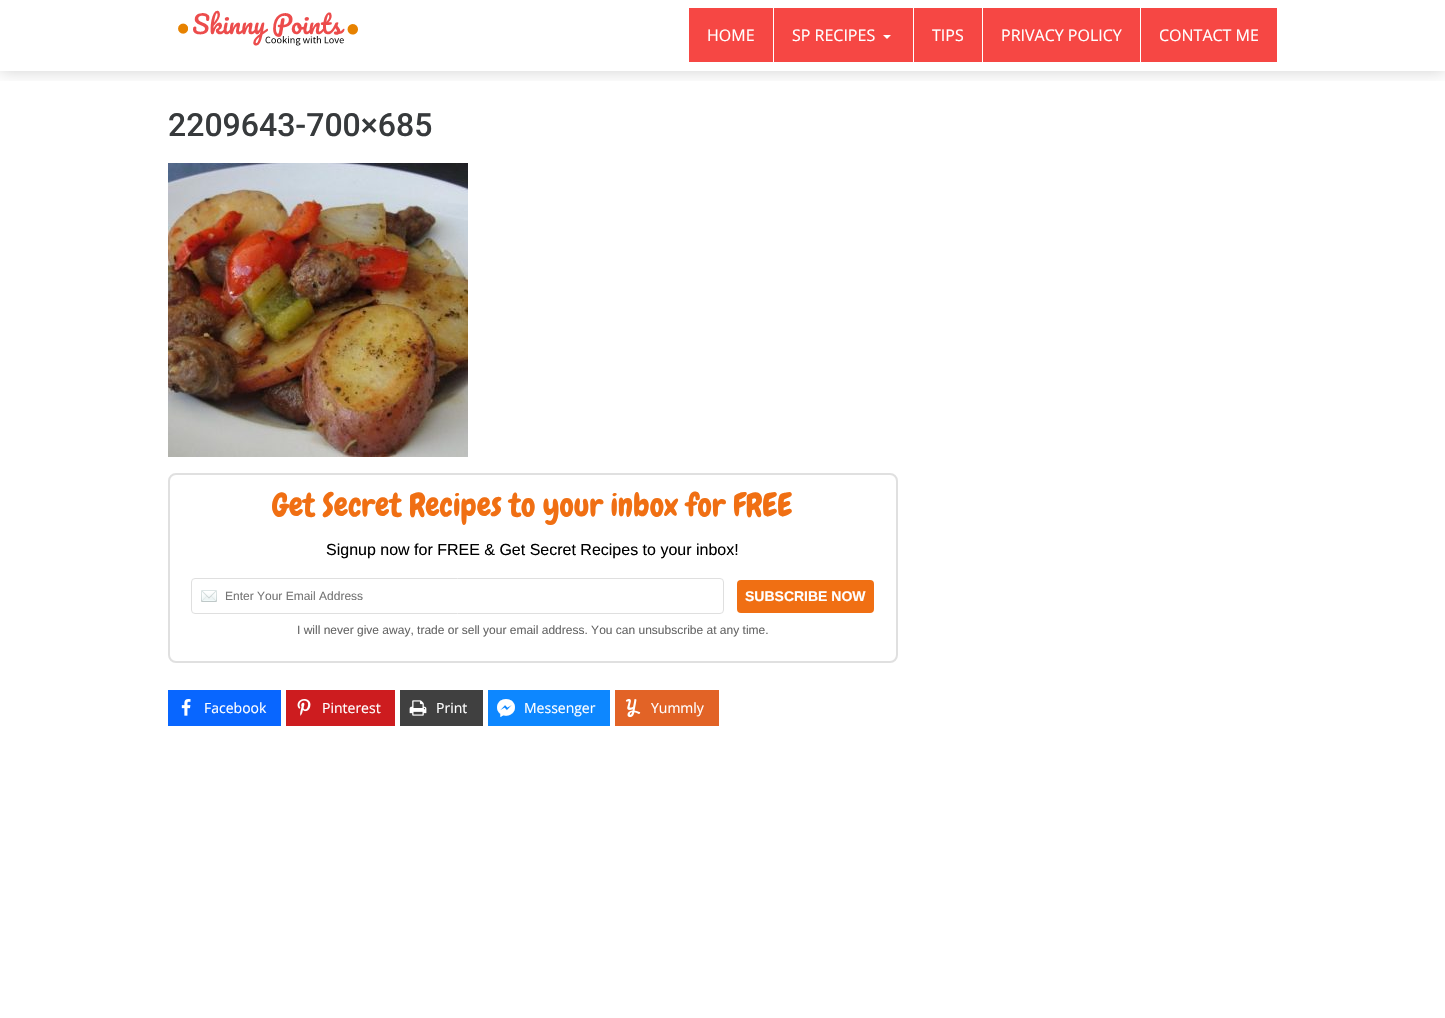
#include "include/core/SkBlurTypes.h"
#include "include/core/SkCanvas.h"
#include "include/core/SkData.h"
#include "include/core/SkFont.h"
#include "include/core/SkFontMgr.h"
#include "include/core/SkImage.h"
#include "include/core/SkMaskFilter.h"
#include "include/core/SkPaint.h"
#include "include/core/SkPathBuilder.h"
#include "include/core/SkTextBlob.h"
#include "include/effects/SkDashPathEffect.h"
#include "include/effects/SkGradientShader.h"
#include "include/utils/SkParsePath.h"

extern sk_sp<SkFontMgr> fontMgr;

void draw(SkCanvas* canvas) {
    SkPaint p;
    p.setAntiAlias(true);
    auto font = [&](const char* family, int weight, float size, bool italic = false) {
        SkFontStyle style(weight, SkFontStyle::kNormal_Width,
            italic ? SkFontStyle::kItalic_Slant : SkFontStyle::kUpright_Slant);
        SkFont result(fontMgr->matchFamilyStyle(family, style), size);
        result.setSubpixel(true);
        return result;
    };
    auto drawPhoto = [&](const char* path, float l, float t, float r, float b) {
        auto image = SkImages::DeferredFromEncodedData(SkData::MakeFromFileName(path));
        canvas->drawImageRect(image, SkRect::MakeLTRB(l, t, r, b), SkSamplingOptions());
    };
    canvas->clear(0xFFFFFFFF);
    canvas->save();
    canvas->clipRect(SkRect::MakeLTRB(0, 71, 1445, 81));
    p.setColor(0x2E000000);
    p.setMaskFilter(SkMaskFilter::MakeBlur(kNormal_SkBlurStyle, 8));
    canvas->drawRect(SkRect::MakeLTRB(0, 0, 1445, 71), p);
    p.setMaskFilter(nullptr);
    canvas->restore();
    drawPhoto("media/1.png", 178, 10, 358, 46);
    p.setColor(0xFFF64744);
    canvas->drawRect(SkRect::MakeLTRB(689, 8, 773, 62), p);
    auto font1 = font("Open Sans", 400, 16);
    p.setColor(0xFFFFFFFF);
    canvas->drawString("HOME", 707, 41, font1, p);
    p.setColor(0xFFF64744);
    canvas->drawRect(SkRect::MakeLTRB(774, 8, 913, 62), p);
    p.setColor(0xFFFFFFFF);
    canvas->drawString("SP RECIPES", 792, 41, font1, p);
    canvas->drawPath(SkPathBuilder().moveTo(883, 35).lineTo(891, 35).lineTo(887, 39).close().detach(), p);
    p.setColor(0xFFF64744);
    canvas->drawRect(SkRect::MakeLTRB(914, 8, 982, 62), p);
    p.setColor(0xFFFFFFFF);
    canvas->drawString("TIPS", 932, 41, font1, p);
    p.setColor(0xFFF64744);
    canvas->drawRect(SkRect::MakeLTRB(983, 8, 1140, 62), p);
    p.setColor(0xFFFFFFFF);
    canvas->drawString("PRIVACY POLICY", 1001, 41, font1, p);
    p.setColor(0xFFF64744);
    canvas->drawRect(SkRect::MakeLTRB(1141, 8, 1277, 62), p);
    p.setColor(0xFFFFFFFF);
    canvas->drawString("CONTACT ME", 1159, 41, font1, p);
    auto font2 = font("Roboto", 500, 32);
    p.setColor(0xFF373A3C);
    canvas->drawString("2209643-700×685", 168, 136, font2, p);
    drawPhoto("media/2.png", 168, 163, 468, 457);
    p.setStyle(SkPaint::kStroke_Style);
    p.setStrokeWidth(2);
    p.setColor(0xFFE0E0E0);
    canvas->drawRoundRect(SkRect::MakeLTRB(169, 474, 897, 662), 7, 7, p);
    auto font3 = font("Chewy", 400, 32);
    p.setStyle(SkPaint::kFill_Style);
    p.setColor(0xFFF06F13);
    canvas->drawString("Get Secret Recipes to your inbox for FREE", 272, 516, font3, p);
    auto font4 = font("Liberation Sans", 400, 16);
    p.setColor(0xFF000000);
    canvas->drawString("Signup now for FREE & Get Secret Recipes to your inbox!", 326, 555, font4, p);
    drawPhoto("media/3.png", 201, 590, 217, 602);
    p.setStyle(SkPaint::kStroke_Style);
    p.setStrokeWidth(1);
    p.setColor(0xFFDFDFDF);
    canvas->drawRoundRect(SkRect::MakeLTRB(191.5f, 578.5f, 723.5f, 613.5f), 3.5f, 3.5f, p);
    auto font5 = font("Liberation Sans", 400, 12);
    p.setStyle(SkPaint::kFill_Style);
    p.setColor(0xFF757575);
    canvas->drawString("Enter Your Email Address", 225, 600, font5, p);
    p.setColor(0xFFF06F13);
    canvas->drawRoundRect(SkRect::MakeLTRB(737, 580, 874, 613), 4, 4, p);
    auto font6 = font("Liberation Sans", 700, 14);
    p.setColor(0xFFFFFFFF);
    canvas->drawString("SUBSCRIBE NOW", 745, 601, font6, p);
    p.setColor(0xFF666666);
    canvas->drawString("I will never give away, trade or sell your email address. You can unsubscribe at any time.", 297, 634, font5, p);
    p.setColor(0xFF0866FF);
    canvas->drawRect(SkRect::MakeLTRB(168, 690, 281, 726), p);
    drawPhoto("media/4.png", 181, 699, 191, 716);
    auto font7 = font("Open Sans", 400, 14);
    p.setColor(0xFFFFFFFF);
    canvas->drawString("Facebook", 204, 713, font7, p);
    p.setColor(0xFFCD1C1F);
    canvas->drawRect(SkRect::MakeLTRB(286, 690, 395, 726), p);
    drawPhoto("media/5.png", 297, 699, 311, 716);
    p.setColor(0xFFFFFFFF);
    canvas->drawString("Pinterest", 322, 713, font7, p);
    p.setColor(0xFF404040);
    canvas->drawRect(SkRect::MakeLTRB(400, 690, 483, 726), p);
    drawPhoto("media/6.png", 409, 700, 427, 716);
    p.setColor(0xFFFFFFFF);
    canvas->drawString("Print", 436, 713, font7, p);
    p.setColor(0xFF0D87FF);
    canvas->drawRect(SkRect::MakeLTRB(488, 690, 610, 726), p);
    auto font8 = font("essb", 400, 18);
    p.setColor(0xFFFFFFFF);
    canvas->drawString("*", 497, 717, font8, p);
    canvas->drawString("Messenger", 524, 713, font7, p);
    p.setColor(0xFFE26326);
    canvas->drawRect(SkRect::MakeLTRB(615, 690, 719, 726), p);
    drawPhoto("media/7.png", 625, 699, 641, 718);
    p.setColor(0xFFFFFFFF);
    canvas->drawString("Yummly", 651, 713, font7, p);
}
